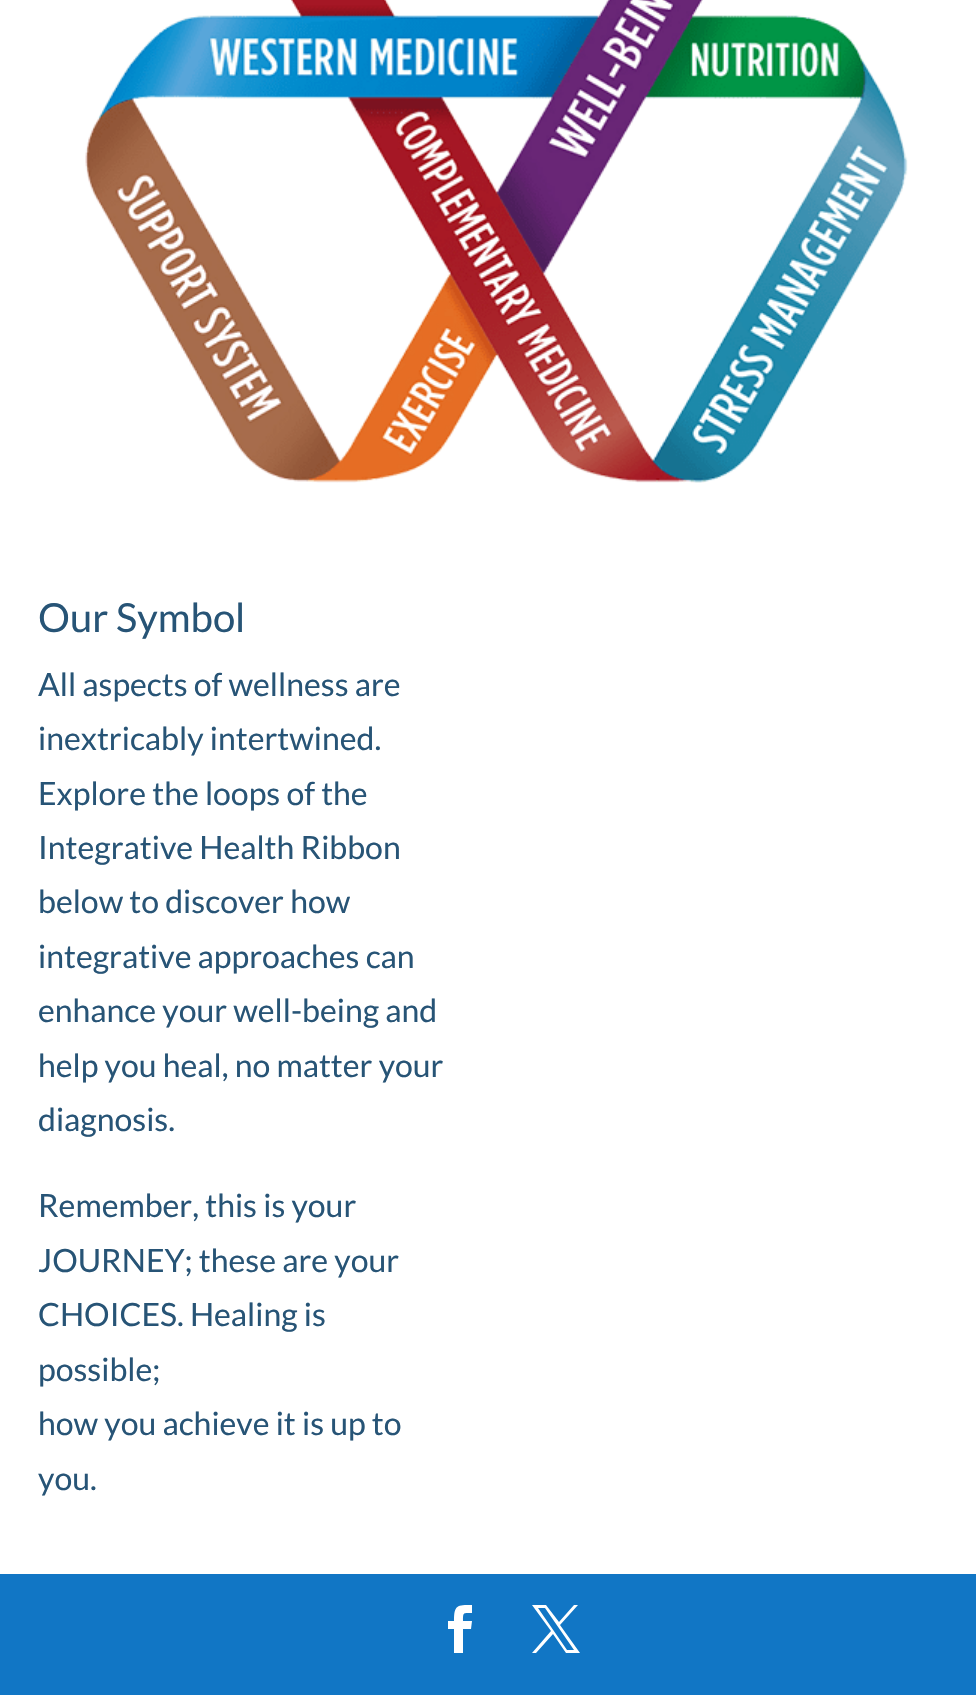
#include "include/core/SkBlurTypes.h"
#include "include/core/SkCanvas.h"
#include "include/core/SkData.h"
#include "include/core/SkFont.h"
#include "include/core/SkFontMgr.h"
#include "include/core/SkImage.h"
#include "include/core/SkMaskFilter.h"
#include "include/core/SkPaint.h"
#include "include/core/SkPathBuilder.h"
#include "include/core/SkTextBlob.h"
#include "include/effects/SkDashPathEffect.h"
#include "include/effects/SkGradientShader.h"
#include "include/utils/SkParsePath.h"

extern sk_sp<SkFontMgr> fontMgr;

void draw(SkCanvas* canvas) {
    SkPaint p;
    p.setAntiAlias(true);
    auto font = [&](const char* family, int weight, float size, bool italic = false) {
        SkFontStyle style(weight, SkFontStyle::kNormal_Width,
            italic ? SkFontStyle::kItalic_Slant : SkFontStyle::kUpright_Slant);
        SkFont result(fontMgr->matchFamilyStyle(family, style), size);
        result.setSubpixel(true);
        return result;
    };
    auto drawPhoto = [&](const char* path, float l, float t, float r, float b) {
        auto image = SkImages::DeferredFromEncodedData(SkData::MakeFromFileName(path));
        canvas->drawImageRect(image, SkRect::MakeLTRB(l, t, r, b), SkSamplingOptions());
    };
    canvas->clear(0xFFFFFFFF);
    drawPhoto("media/1.png", 85, 0, 908, 483);
    auto font1 = font("Lato", 400, 40);
    p.setColor(0xFF275476);
    canvas->drawString("Our Symbol", 38, 632, font1, p);
    auto font2 = font("Lato", 400, 32);
    {
        const struct { const char* s; float x, y; } items[] = {
            {"All aspects of wellness are", 38, 696},
            {"inextricably intertwined.", 38, 750},
            {"Explore the loops of the", 38, 805},
            {"Integrative Health Ribbon", 38, 859},
            {"below to discover how", 38, 913},
            {"integrative approaches can", 38, 968},
            {"enhance your well-being and", 38, 1022},
            {"help you heal, no matter your", 38, 1077},
            {"diagnosis.", 38, 1131},
            {"Remember, this is your", 38, 1217},
            {"JOURNEY; these are your", 38, 1272},
            {"CHOICES. Healing is", 38, 1326},
            {"possible;", 38, 1381},
            {"how you achieve it is up to", 38, 1435},
            {"you.", 38, 1490},
        };
        for (auto [s, x, y] : items) {
            canvas->drawString(s, x, y, font2, p);
        }
    }
    p.setColor(0xFF1176C5);
    canvas->drawRect(SkRect::MakeLTRB(0, 1574, 976, 1695), p);
    p.setColor(0xFFFFFFFF);
    canvas->drawPath(SkPathBuilder().moveTo(454, 1653).lineTo(463, 1653).lineTo(463, 1629).lineTo(471, 1629).lineTo(472, 1621).lineTo(463, 1621).cubicTo(463, 1612, 463, 1613, 472, 1613).lineTo(472, 1605).cubicTo(457, 1605, 454, 1605, 454, 1621).lineTo(448, 1621).lineTo(448, 1629).lineTo(454, 1629).close().detach(), p);
    canvas->drawPath(SkPathBuilder().moveTo(532, 1605).lineTo(551, 1631).lineTo(532, 1653).lineTo(536, 1653).lineTo(553, 1634).lineTo(566, 1653).lineTo(580, 1653).lineTo(560, 1625).lineTo(578, 1605).lineTo(574, 1605).lineTo(559, 1622).lineTo(546, 1605).close().moveTo(538, 1608).lineTo(545, 1608).lineTo(574, 1650).lineTo(567, 1650).close().detach(), p);
}
